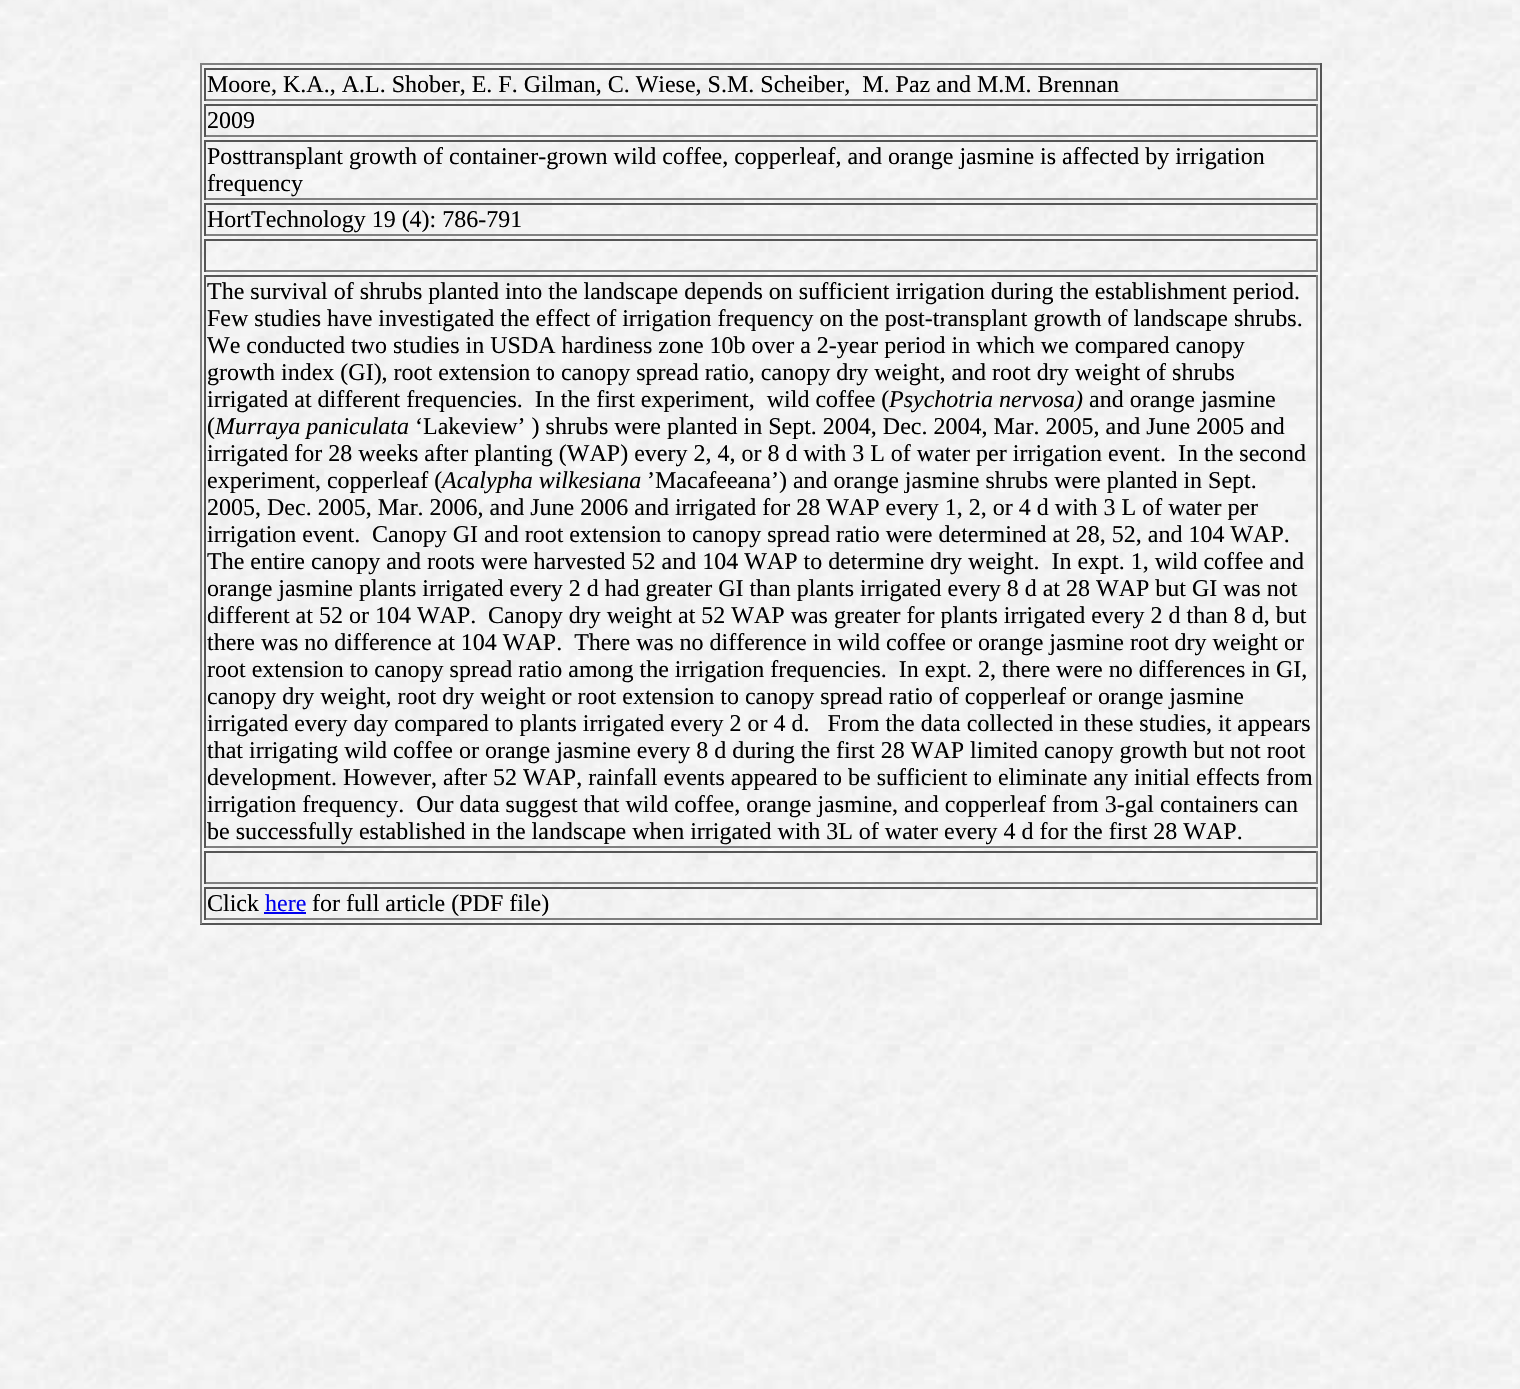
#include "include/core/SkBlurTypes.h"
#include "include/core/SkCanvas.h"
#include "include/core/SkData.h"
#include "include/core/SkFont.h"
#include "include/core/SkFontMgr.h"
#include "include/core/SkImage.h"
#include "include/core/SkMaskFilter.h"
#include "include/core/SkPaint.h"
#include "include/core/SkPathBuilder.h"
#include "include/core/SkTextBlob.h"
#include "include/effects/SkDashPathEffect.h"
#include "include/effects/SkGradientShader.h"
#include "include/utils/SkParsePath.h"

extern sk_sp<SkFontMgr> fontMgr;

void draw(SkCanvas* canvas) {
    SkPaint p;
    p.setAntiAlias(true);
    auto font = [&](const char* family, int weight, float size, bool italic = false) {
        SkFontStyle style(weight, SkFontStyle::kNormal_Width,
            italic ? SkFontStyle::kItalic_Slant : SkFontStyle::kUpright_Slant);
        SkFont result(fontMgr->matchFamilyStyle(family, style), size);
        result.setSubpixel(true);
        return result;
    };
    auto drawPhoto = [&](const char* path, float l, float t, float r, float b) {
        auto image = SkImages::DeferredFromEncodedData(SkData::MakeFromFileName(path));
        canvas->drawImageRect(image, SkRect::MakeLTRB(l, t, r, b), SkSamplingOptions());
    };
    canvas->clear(0xFFFFFFFF);
    drawPhoto("media/1.png", 0, 0, 1520, 1389);
    {
        const struct { float l, t, r, b; SkColor color; } items[] = {
            {200, 63, 1322, 65, 0xFF808080},
            {1320, 63, 1322, 924, 0xFF555555},
            {200, 923, 1322, 925, 0xFF555555},
            {200, 63, 202, 924, 0xFF808080},
            {204, 68, 1317, 70, 0xFF555555},
            {1316, 68, 1318, 101, 0xFF808080},
            {204, 99, 1317, 101, 0xFF808080},
            {204, 68, 206, 101, 0xFF555555},
        };
        for (auto [l, t, r, b, color] : items) {
            p.setColor(color);
            canvas->drawRect(SkRect::MakeLTRB(l, t, r, b), p);
        }
    }
    auto font1 = font("Liberation Serif", 400, 24);
    p.setColor(0xFF000000);
    canvas->drawString("Moore, K.A., A.L. Shober, E. F. Gilman, C. Wiese, S.M. Scheiber,  M. Paz and M.M. Brennan", 207, 92, font1, p);
    {
        const struct { float l, t, r, b; SkColor color; } items[] = {
            {204, 104, 1317, 106, 0xFF555555},
            {1316, 104, 1318, 137, 0xFF808080},
            {204, 135, 1317, 137, 0xFF808080},
            {204, 104, 206, 137, 0xFF555555},
        };
        for (auto [l, t, r, b, color] : items) {
            p.setColor(color);
            canvas->drawRect(SkRect::MakeLTRB(l, t, r, b), p);
        }
    }
    p.setColor(0xFF000000);
    canvas->drawString("2009", 207, 128, font1, p);
    {
        const struct { float l, t, r, b; SkColor color; } items[] = {
            {204, 140, 1317, 142, 0xFF555555},
            {1316, 140, 1318, 200, 0xFF808080},
            {204, 198, 1317, 200, 0xFF808080},
            {204, 140, 206, 200, 0xFF555555},
        };
        for (auto [l, t, r, b, color] : items) {
            p.setColor(color);
            canvas->drawRect(SkRect::MakeLTRB(l, t, r, b), p);
        }
    }
    p.setColor(0xFF000000);
    canvas->drawString("Posttransplant growth of container-grown wild coffee, copperleaf, and orange jasmine is affected by irrigation", 207, 164, font1, p);
    canvas->drawString("frequency", 207, 191, font1, p);
    {
        const struct { float l, t, r, b; SkColor color; } items[] = {
            {204, 203, 1317, 205, 0xFF555555},
            {1316, 203, 1318, 236, 0xFF808080},
            {204, 234, 1317, 236, 0xFF808080},
            {204, 203, 206, 236, 0xFF555555},
        };
        for (auto [l, t, r, b, color] : items) {
            p.setColor(color);
            canvas->drawRect(SkRect::MakeLTRB(l, t, r, b), p);
        }
    }
    p.setColor(0xFF000000);
    canvas->drawString("HortTechnology 19 (4): 786-791", 207, 227, font1, p);
    {
        const struct { float l, t, r, b; SkColor color; } items[] = {
            {204, 239, 1317, 241, 0xFF555555},
            {1316, 239, 1318, 272, 0xFF808080},
            {204, 270, 1317, 272, 0xFF808080},
            {204, 239, 206, 272, 0xFF555555},
            {204, 275, 1317, 277, 0xFF555555},
            {1316, 275, 1318, 848, 0xFF808080},
            {204, 846, 1317, 848, 0xFF808080},
            {204, 275, 206, 848, 0xFF555555},
        };
        for (auto [l, t, r, b, color] : items) {
            p.setColor(color);
            canvas->drawRect(SkRect::MakeLTRB(l, t, r, b), p);
        }
    }
    p.setColor(0xFF000000);
    {
        const struct { const char* s; float x, y; } items[] = {
            {"The survival of shrubs planted into the landscape depends on sufficient irrigation during the establishment period.", 207, 299},
            {"Few studies have investigated the effect of irrigation frequency on the post-transplant growth of landscape shrubs.", 207, 326},
            {"We conducted two studies in USDA hardiness zone 10b over a 2-year period in which we compared canopy", 207, 353},
            {"growth index (GI), root extension to canopy spread ratio, canopy dry weight, and root dry weight of shrubs", 207, 380},
            {"irrigated at different frequencies.  In the first experiment,  wild coffee (", 207, 407},
        };
        for (auto [s, x, y] : items) {
            canvas->drawString(s, x, y, font1, p);
        }
    }
    auto font2 = font("Liberation Serif", 400, 24, true);
    canvas->drawString("Psychotria nervosa)", 889, 407, font2, p);
    canvas->drawString("and orange jasmine", 1089, 407, font1, p);
    canvas->drawString("(", 207, 434, font1, p);
    canvas->drawString("Murraya paniculata", 215, 434, font2, p);
    {
        const struct { const char* s; float x, y; } items[] = {
            {"‘Lakeview’ ) shrubs were planted in Sept. 2004, Dec. 2004, Mar. 2005, and June 2005 and", 415, 434},
            {"irrigated for 28 weeks after planting (WAP) every 2, 4, or 8 d with 3 L of water per irrigation event.  In the second", 207, 461},
            {"experiment, copperleaf (", 207, 488},
        };
        for (auto [s, x, y] : items) {
            canvas->drawString(s, x, y, font1, p);
        }
    }
    canvas->drawString("Acalypha wilkesiana", 442, 488, font2, p);
    {
        const struct { const char* s; float x, y; } items[] = {
            {"’Macafeeana’) and orange jasmine shrubs were planted in Sept.", 647, 488},
            {"2005, Dec. 2005, Mar. 2006, and June 2006 and irrigated for 28 WAP every 1, 2, or 4 d with 3 L of water per", 207, 515},
            {"irrigation event.", 207, 542},
            {"Canopy GI and root extension to canopy spread ratio were determined at 28, 52, and 104 WAP.", 372, 542},
            {"The entire canopy and roots were harvested 52 and 104 WAP to determine dry weight.  In expt. 1, wild coffee and", 207, 569},
            {"orange jasmine plants irrigated every 2 d had greater GI than plants irrigated every 8 d at 28 WAP but GI was not", 207, 596},
            {"different at 52 or 104 WAP.", 207, 623},
            {"Canopy dry weight at 52 WAP was greater for plants irrigated every 2 d than 8 d, but", 488, 623},
            {"there was no difference at 104 WAP.  There was no difference in wild coffee or orange jasmine root dry weight or", 207, 650},
            {"root extension to canopy spread ratio among the irrigation frequencies.  In expt. 2, there were no differences in GI,", 207, 677},
            {"canopy dry weight, root dry weight or root extension to canopy spread ratio of copperleaf or orange jasmine", 207, 704},
            {"irrigated every day compared to plants irrigated every 2 or 4 d.   From the data collected in these studies, it appears", 207, 731},
            {"that irrigating wild coffee or orange jasmine every 8 d during the first 28 WAP limited canopy growth but not root", 207, 758},
            {"development. However, after 52 WAP, rainfall events appeared to be sufficient to eliminate any initial effects from", 207, 785},
            {"irrigation frequency.  Our data suggest that wild coffee, orange jasmine, and copperleaf from 3-gal containers can", 207, 812},
            {"be successfully established in the landscape when irrigated with 3L of water every 4 d for the first 28 WAP.", 207, 839},
        };
        for (auto [s, x, y] : items) {
            canvas->drawString(s, x, y, font1, p);
        }
    }
    {
        const struct { float l, t, r, b; SkColor color; } items[] = {
            {204, 851, 1317, 853, 0xFF555555},
            {1316, 851, 1318, 884, 0xFF808080},
            {204, 882, 1317, 884, 0xFF808080},
            {204, 851, 206, 884, 0xFF555555},
            {204, 887, 1317, 889, 0xFF555555},
            {1316, 887, 1318, 920, 0xFF808080},
            {204, 918, 1317, 920, 0xFF808080},
            {204, 887, 206, 920, 0xFF555555},
        };
        for (auto [l, t, r, b, color] : items) {
            p.setColor(color);
            canvas->drawRect(SkRect::MakeLTRB(l, t, r, b), p);
        }
    }
    p.setColor(0xFF000000);
    canvas->drawString("Click", 207, 911, font1, p);
    p.setColor(0xFF0000EE);
    canvas->drawString("here", 265, 911, font1, p);
    canvas->drawRect(SkRect::MakeLTRB(264, 912, 306, 914), p);
    p.setColor(0xFF000000);
    canvas->drawString("for full article (PDF file)", 312, 911, font1, p);
}
